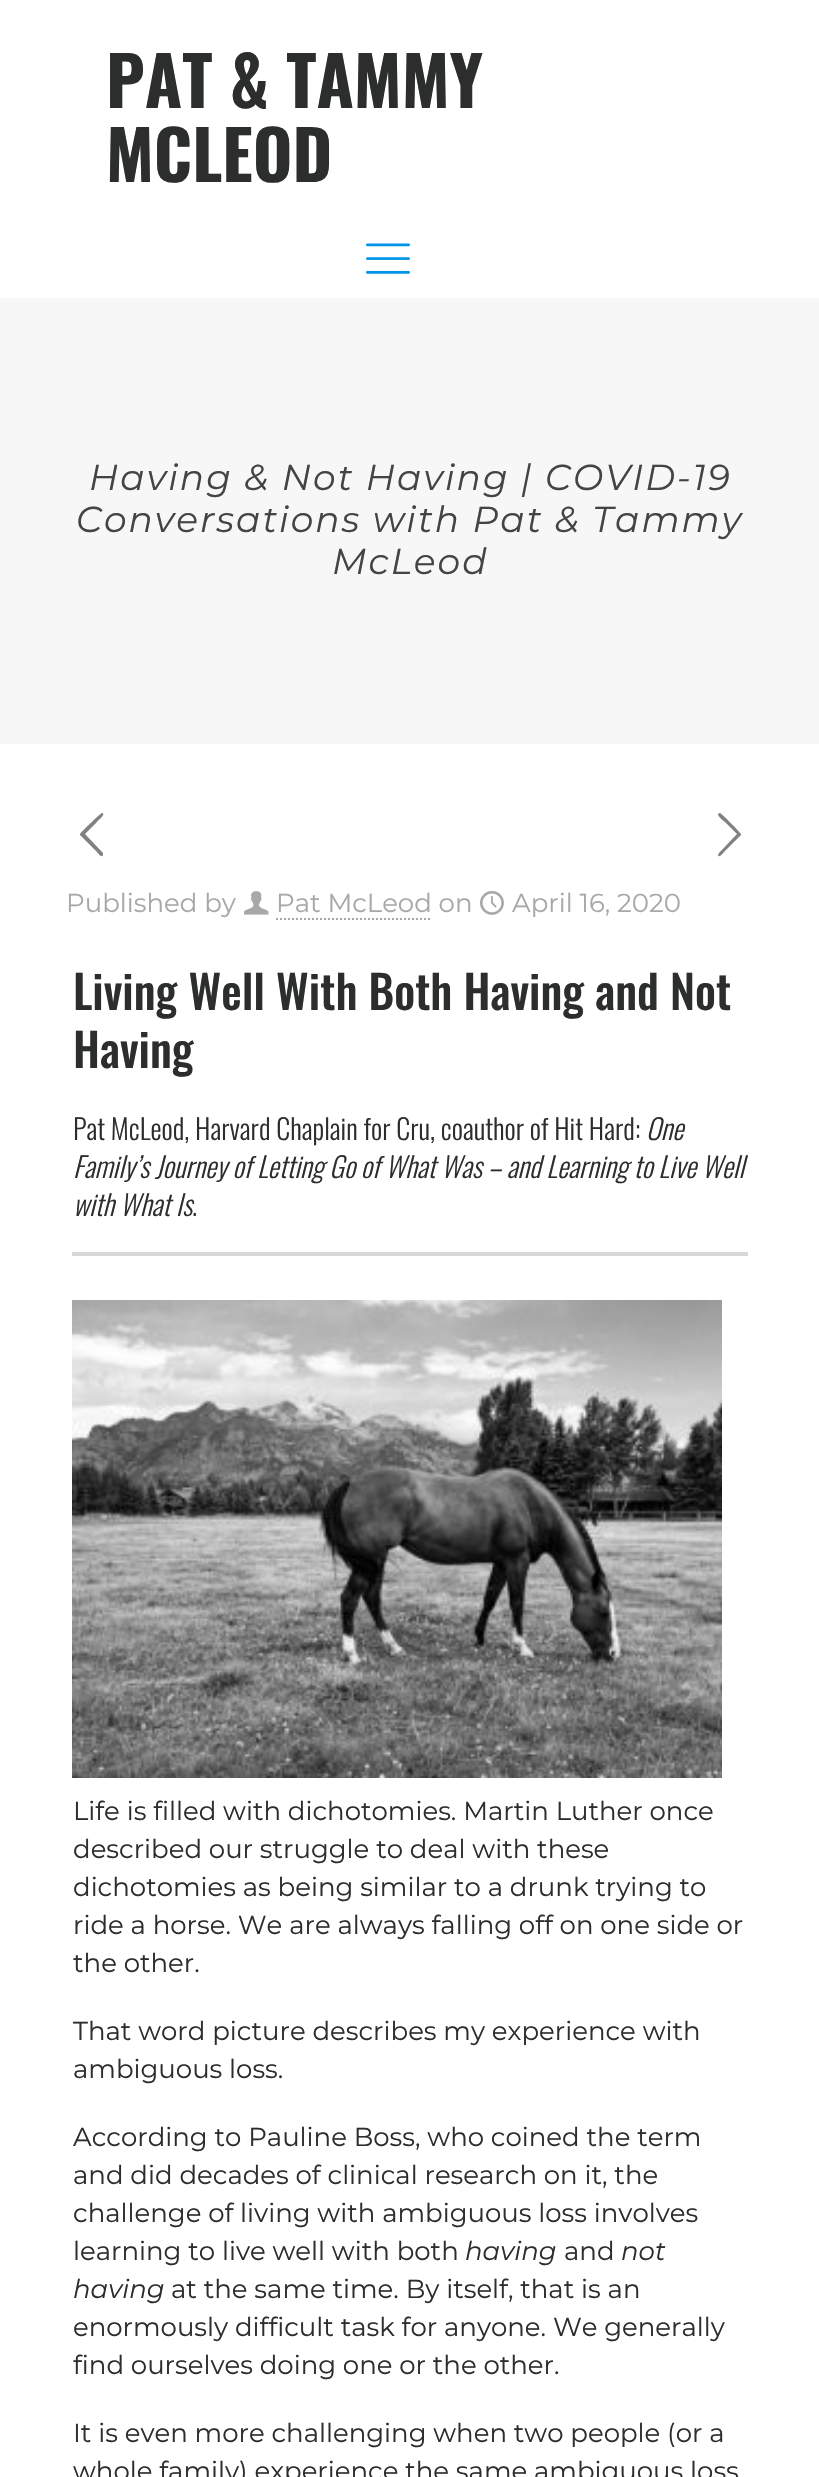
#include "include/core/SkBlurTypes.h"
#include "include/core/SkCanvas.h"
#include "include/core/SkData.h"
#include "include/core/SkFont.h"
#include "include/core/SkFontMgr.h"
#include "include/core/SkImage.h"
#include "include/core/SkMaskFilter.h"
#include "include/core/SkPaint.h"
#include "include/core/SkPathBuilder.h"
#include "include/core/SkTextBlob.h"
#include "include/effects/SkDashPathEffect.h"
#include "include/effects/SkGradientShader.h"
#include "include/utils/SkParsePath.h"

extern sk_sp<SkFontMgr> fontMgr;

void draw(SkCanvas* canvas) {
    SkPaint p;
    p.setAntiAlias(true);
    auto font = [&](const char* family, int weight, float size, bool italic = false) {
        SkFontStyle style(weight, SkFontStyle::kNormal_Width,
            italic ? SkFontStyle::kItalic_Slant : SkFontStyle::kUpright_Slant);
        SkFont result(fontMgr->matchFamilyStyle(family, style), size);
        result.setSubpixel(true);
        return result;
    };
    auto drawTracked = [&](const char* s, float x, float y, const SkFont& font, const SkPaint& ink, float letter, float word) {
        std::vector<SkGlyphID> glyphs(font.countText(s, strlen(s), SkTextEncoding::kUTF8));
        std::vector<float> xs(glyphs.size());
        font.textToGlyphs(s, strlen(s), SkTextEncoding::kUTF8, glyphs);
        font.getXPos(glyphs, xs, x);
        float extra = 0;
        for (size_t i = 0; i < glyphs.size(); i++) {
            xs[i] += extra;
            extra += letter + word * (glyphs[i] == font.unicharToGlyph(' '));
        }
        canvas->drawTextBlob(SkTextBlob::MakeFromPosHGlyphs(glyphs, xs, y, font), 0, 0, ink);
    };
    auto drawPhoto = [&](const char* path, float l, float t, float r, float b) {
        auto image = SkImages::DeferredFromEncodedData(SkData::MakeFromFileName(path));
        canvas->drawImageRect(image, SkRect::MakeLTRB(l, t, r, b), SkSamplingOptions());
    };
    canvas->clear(0xFFFFFFFF);
    auto font1 = font("Oswald", 700, 68);
    p.setColor(0xFF2C2E2D);
    canvas->drawString("PAT & TAMMY", 106, 108, font1, p);
    canvas->drawString("MCLEOD", 106, 182, font1, p);
    drawPhoto("media/1.png", 366, 243, 410, 274);
    p.setColor(0xFFF7F7F7);
    canvas->drawRect(SkRect::MakeLTRB(0, 298, 819, 744), p);
    auto font2 = font("Montserrat", 400, 36, true);
    p.setColor(0xFF444444);
    {
        const struct { const char* s; float x, y; } items[] = {
            {"Having & Not Having | COVID-19", 89, 490},
            {"Conversations with Pat & Tammy", 76, 532},
            {"McLeod", 332, 574},
        };
        for (auto [s, x, y] : items) {
            drawTracked(s, x, y, font2, p, 2, 0);
        }
    }
    p.setColor(0xFF808281);
    canvas->drawPath(SkPathBuilder().moveTo(103, 853).lineTo(103, 855).cubicTo(102, 859, 97, 852, 97, 852).lineTo(80, 835).lineTo(80, 834).cubicTo(82, 831, 101, 813, 102, 813).cubicTo(107, 814, 97, 821, 97, 822).lineTo(85, 834).close().detach(), p);
    canvas->drawPath(SkPathBuilder().moveTo(719, 853).lineTo(737, 834).lineTo(725, 822).cubicTo(724, 821, 714, 814, 720, 813).cubicTo(721, 813, 739, 831, 741, 834).lineTo(741, 835).lineTo(724, 852).cubicTo(724, 852, 719, 859, 718, 855).close().detach(), p);
    auto font3 = font("Montserrat", 400, 26);
    p.setColor(0xFFA8A8A8);
    canvas->drawString("Published by", 66, 912, font3, p);
    drawPhoto("media/2.png", 244, 891, 269, 915);
    canvas->drawString("Pat McLeod on", 276, 912, font3, p);
    p.setStyle(SkPaint::kStroke_Style);
    p.setStrokeWidth(2);
    p.setPathEffect(SkDashPathEffect::Make({{2, 2}}, 0));
    canvas->drawPath(SkPathBuilder().moveTo(276, 919).lineTo(432, 919).detach(), p);
    p.setPathEffect(nullptr);
    drawPhoto("media/3.png", 480, 891, 504, 915);
    p.setStyle(SkPaint::kFill_Style);
    canvas->drawString("April 16, 2020", 512, 912, font3, p);
    auto font4 = font("Oswald", 500, 46);
    p.setColor(0xFF2C2E2D);
    canvas->drawString("Living Well With Both Having and Not", 73, 1010, font4, p);
    canvas->drawString("Having", 73, 1068, font4, p);
    auto font5 = font("Oswald", 300, 28);
    canvas->drawString("Pat McLeod, Harvard Chaplain for Cru, coauthor of Hit Hard:", 73, 1140, font5, p);
    auto font6 = font("Oswald", 300, 28, true);
    {
        const struct { const char* s; float x, y; } items[] = {
            {"One", 646, 1140},
            {"Family’s Journey of Letting Go of What Was – and Learning to Live Well", 73, 1178},
            {"with What Is", 73, 1216},
        };
        for (auto [s, x, y] : items) {
            canvas->drawString(s, x, y, font6, p);
        }
    }
    canvas->drawString(".", 192, 1216, font5, p);
    p.setColor(0xFFD8D8D8);
    canvas->drawRect(SkRect::MakeLTRB(72, 1252, 748, 1256), p);
    drawPhoto("media/4.png", 72, 1300, 722, 1778);
    p.setColor(0xFF2C2E2D);
    {
        const struct { const char* s; float x, y; } items[] = {
            {"Life is filled with dichotomies. Martin Luther once", 73, 1820},
            {"described our struggle to deal with these", 73, 1858},
            {"dichotomies as being similar to a drunk trying to", 73, 1896},
            {"ride a horse. We are always falling off on one side or", 73, 1934},
            {"the other.", 73, 1972},
            {"That word picture describes my experience with", 73, 2040},
            {"ambiguous loss.", 73, 2078},
            {"According to Pauline Boss, who coined the term", 73, 2146},
            {"and did decades of clinical research on it, the", 73, 2184},
            {"challenge of living with ambiguous loss involves", 73, 2222},
            {"learning to live well with both", 73, 2260},
        };
        for (auto [s, x, y] : items) {
            canvas->drawString(s, x, y, font3, p);
        }
    }
    auto font7 = font("Montserrat", 400, 26, true);
    canvas->drawString("having", 465, 2260, font7, p);
    canvas->drawString("and", 564, 2260, font3, p);
    canvas->drawString("not", 621, 2260, font7, p);
    canvas->drawString("having", 73, 2298, font7, p);
    {
        const struct { const char* s; float x, y; } items[] = {
            {"at the same time. By itself, that is an", 171, 2298},
            {"enormously difficult task for anyone. We generally", 73, 2336},
            {"find ourselves doing one or the other.", 73, 2374},
            {"It is even more challenging when two people (or a", 73, 2442},
            {"whole family) experience the same ambiguous loss", 73, 2480},
        };
        for (auto [s, x, y] : items) {
            canvas->drawString(s, x, y, font3, p);
        }
    }
}
